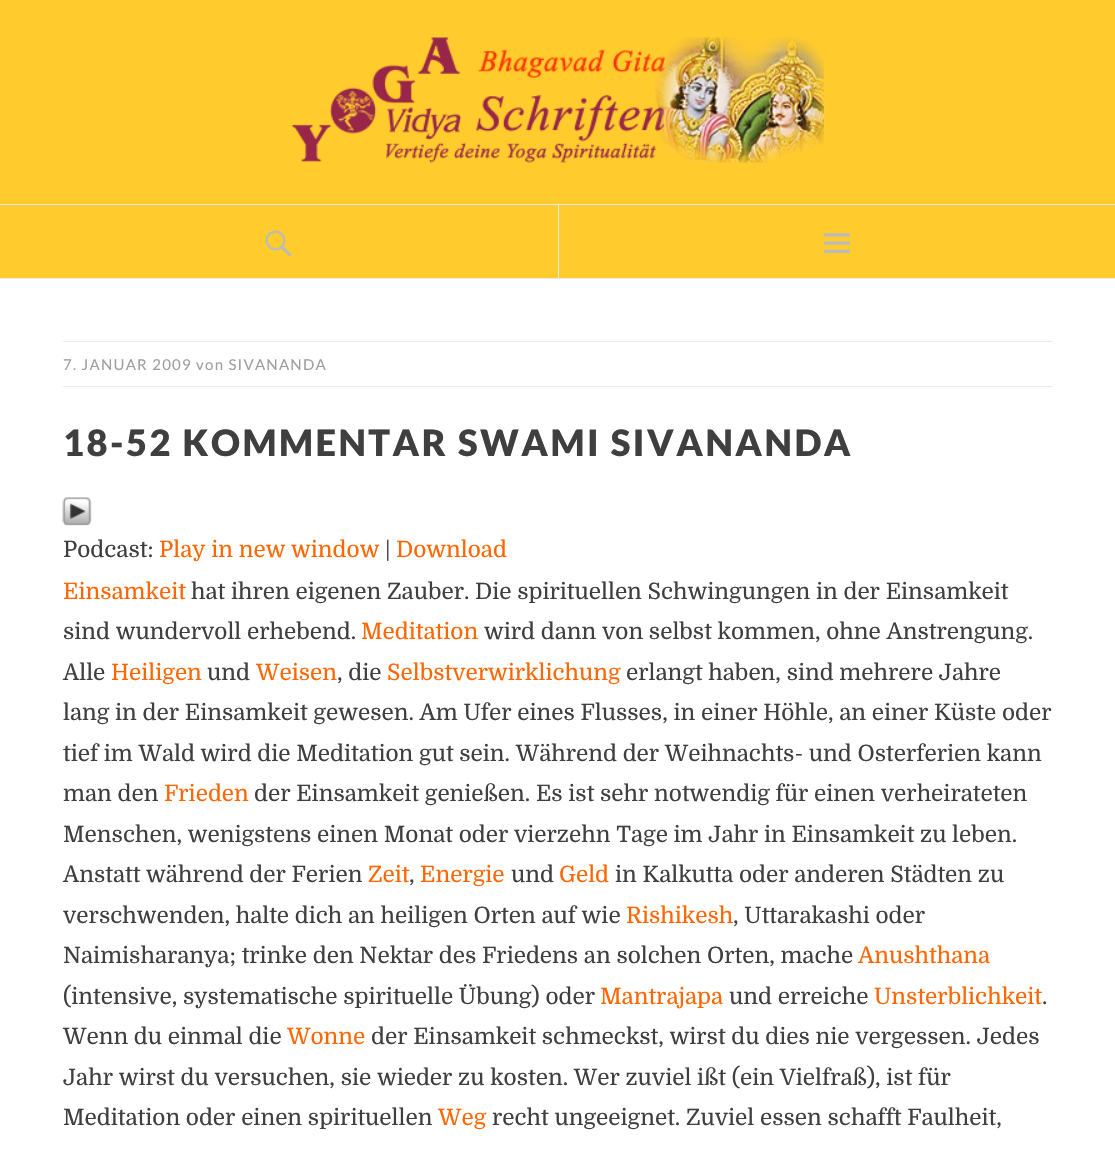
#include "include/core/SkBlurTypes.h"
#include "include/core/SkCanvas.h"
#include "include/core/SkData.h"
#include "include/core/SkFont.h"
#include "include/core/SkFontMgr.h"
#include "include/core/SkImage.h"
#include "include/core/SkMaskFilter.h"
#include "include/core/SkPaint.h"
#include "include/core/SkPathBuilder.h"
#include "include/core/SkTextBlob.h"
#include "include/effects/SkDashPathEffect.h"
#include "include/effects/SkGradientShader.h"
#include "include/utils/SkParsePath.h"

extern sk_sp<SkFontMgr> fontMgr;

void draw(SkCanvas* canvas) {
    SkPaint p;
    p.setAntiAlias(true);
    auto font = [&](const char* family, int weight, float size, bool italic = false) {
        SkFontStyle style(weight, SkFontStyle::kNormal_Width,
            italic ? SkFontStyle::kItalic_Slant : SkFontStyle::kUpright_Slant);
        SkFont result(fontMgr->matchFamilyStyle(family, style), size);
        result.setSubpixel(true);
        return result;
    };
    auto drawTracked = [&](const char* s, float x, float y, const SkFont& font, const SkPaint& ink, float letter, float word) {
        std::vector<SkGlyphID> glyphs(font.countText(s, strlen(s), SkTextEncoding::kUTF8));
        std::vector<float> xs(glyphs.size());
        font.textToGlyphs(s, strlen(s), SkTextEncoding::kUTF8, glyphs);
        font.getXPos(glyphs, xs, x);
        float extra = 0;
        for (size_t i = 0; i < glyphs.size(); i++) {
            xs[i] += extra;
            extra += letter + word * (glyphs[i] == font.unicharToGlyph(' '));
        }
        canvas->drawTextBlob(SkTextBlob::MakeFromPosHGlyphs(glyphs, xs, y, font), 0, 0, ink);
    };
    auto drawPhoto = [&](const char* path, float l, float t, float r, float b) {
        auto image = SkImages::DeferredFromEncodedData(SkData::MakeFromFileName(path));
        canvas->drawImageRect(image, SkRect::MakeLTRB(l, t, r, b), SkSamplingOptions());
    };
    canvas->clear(0xFFFFFFFF);
    p.setColor(0xFFFFCB2D);
    canvas->drawRect(SkRect::MakeLTRB(0, 0, 1115, 278), p);
    drawPhoto("media/1.png", 292, 37, 824, 163);
    p.setColor(0xFFEAEAEA);
    canvas->drawRect(SkRect::MakeLTRB(0, 204, 1115, 205), p);
    canvas->drawRect(SkRect::MakeLTRB(0, 278, 1115, 279), p);
    drawPhoto("media/2.png", 265, 230, 292, 257);
    canvas->drawRect(SkRect::MakeLTRB(558, 204, 559, 279), p);
    drawPhoto("media/3.png", 823, 233, 850, 253);
    canvas->drawRect(SkRect::MakeLTRB(63, 341, 1053, 342), p);
    auto font1 = font("Lato", 400, 15);
    p.setColor(0xFF9E9E9E);
    drawTracked("7. JANUAR 2009 von SIVANANDA", 63, 370, font1, p, 1.25f, 0);
    p.setColor(0xFFEAEAEA);
    canvas->drawRect(SkRect::MakeLTRB(63, 386, 1053, 387), p);
    auto font2 = font("Lato", 900, 36.25f);
    p.setColor(0xFF3F3F3F);
    drawTracked("18-52 KOMMENTAR SWAMI SIVANANDA", 63, 456, font2, p, 2.5f, 0);
    drawPhoto("media/4.png", 62, 497, 92, 526);
    auto font3 = font("Domine", 400, 22.5f);
    canvas->drawString("Podcast:", 63, 557, font3, p);
    p.setColor(0xFFFF6600);
    canvas->drawString("Play in new window", 159, 557, font3, p);
    p.setColor(0xFF3F3F3F);
    canvas->drawString("|", 385, 557, font3, p);
    p.setColor(0xFFFF6600);
    canvas->drawString("Download", 396, 557, font3, p);
    canvas->drawString("Einsamkeit", 63, 599, font3, p);
    p.setColor(0xFF3F3F3F);
    canvas->drawString("hat ihren eigenen Zauber. Die spirituellen Schwingungen in der Einsamkeit", 191, 599, font3, p);
    canvas->drawString("sind wundervoll erhebend.", 63, 639, font3, p);
    p.setColor(0xFFFF6600);
    canvas->drawString("Meditation", 361, 639, font3, p);
    p.setColor(0xFF3F3F3F);
    canvas->drawString("wird dann von selbst kommen, ohne Anstrengung.", 484, 639, font3, p);
    canvas->drawString("Alle", 63, 680, font3, p);
    p.setColor(0xFFFF6600);
    canvas->drawString("Heiligen", 111, 680, font3, p);
    p.setColor(0xFF3F3F3F);
    canvas->drawString("und", 207, 680, font3, p);
    p.setColor(0xFFFF6600);
    canvas->drawString("Weisen", 256, 680, font3, p);
    p.setColor(0xFF3F3F3F);
    canvas->drawString(", die", 337, 680, font3, p);
    p.setColor(0xFFFF6600);
    canvas->drawString("Selbstverwirklichung", 387, 680, font3, p);
    p.setColor(0xFF3F3F3F);
    {
        const struct { const char* s; float x, y; } items[] = {
            {"erlangt haben, sind mehrere Jahre", 626, 680},
            {"lang in der Einsamkeit gewesen. Am Ufer eines Flusses, in einer Höhle, an einer Küste oder", 63, 720},
            {"tief im Wald wird die Meditation gut sein. Während der Weihnachts- und Osterferien kann", 63, 761},
            {"man den", 63, 801},
        };
        for (auto [s, x, y] : items) {
            canvas->drawString(s, x, y, font3, p);
        }
    }
    p.setColor(0xFFFF6600);
    canvas->drawString("Frieden", 164, 801, font3, p);
    p.setColor(0xFF3F3F3F);
    {
        const struct { const char* s; float x, y; } items[] = {
            {"der Einsamkeit genießen. Es ist sehr notwendig für einen verheirateten", 254, 801},
            {"Menschen, wenigstens einen Monat oder vierzehn Tage im Jahr in Einsamkeit zu leben.", 63, 842},
            {"Anstatt während der Ferien", 63, 882},
        };
        for (auto [s, x, y] : items) {
            canvas->drawString(s, x, y, font3, p);
        }
    }
    p.setColor(0xFFFF6600);
    canvas->drawString("Zeit", 368, 882, font3, p);
    p.setColor(0xFF3F3F3F);
    canvas->drawString(",", 409, 882, font3, p);
    p.setColor(0xFFFF6600);
    canvas->drawString("Energie", 420, 882, font3, p);
    p.setColor(0xFF3F3F3F);
    canvas->drawString("und", 511, 882, font3, p);
    p.setColor(0xFFFF6600);
    canvas->drawString("Geld", 559, 882, font3, p);
    p.setColor(0xFF3F3F3F);
    canvas->drawString("in Kalkutta oder anderen Städten zu", 615, 882, font3, p);
    canvas->drawString("verschwenden, halte dich an heiligen Orten auf wie", 63, 923, font3, p);
    p.setColor(0xFFFF6600);
    canvas->drawString("Rishikesh", 626, 923, font3, p);
    p.setColor(0xFF3F3F3F);
    canvas->drawString(", Uttarakashi oder", 733, 923, font3, p);
    canvas->drawString("Naimisharanya; trinke den Nektar des Friedens an solchen Orten, mache", 63, 963, font3, p);
    p.setColor(0xFFFF6600);
    canvas->drawString("Anushthana", 858, 963, font3, p);
    p.setColor(0xFF3F3F3F);
    canvas->drawString("(intensive, systematische spirituelle Übung) oder", 63, 1004, font3, p);
    p.setColor(0xFFFF6600);
    canvas->drawString("Mantrajapa", 600, 1004, font3, p);
    p.setColor(0xFF3F3F3F);
    canvas->drawString("und erreiche", 729, 1004, font3, p);
    p.setColor(0xFFFF6600);
    canvas->drawString("Unsterblichkeit", 874, 1004, font3, p);
    p.setColor(0xFF3F3F3F);
    canvas->drawString(".", 1042, 1004, font3, p);
    canvas->drawString("Wenn du einmal die", 63, 1044, font3, p);
    p.setColor(0xFFFF6600);
    canvas->drawString("Wonne", 287, 1044, font3, p);
    p.setColor(0xFF3F3F3F);
    {
        const struct { const char* s; float x, y; } items[] = {
            {"der Einsamkeit schmeckst, wirst du dies nie vergessen. Jedes", 371, 1044},
            {"Jahr wirst du versuchen, sie wieder zu kosten. Wer zuviel ißt (ein Vielfraß), ist für", 63, 1085},
            {"Meditation oder einen spirituellen", 63, 1125},
        };
        for (auto [s, x, y] : items) {
            canvas->drawString(s, x, y, font3, p);
        }
    }
    p.setColor(0xFFFF6600);
    canvas->drawString("Weg", 438, 1125, font3, p);
    p.setColor(0xFF3F3F3F);
    canvas->drawString("recht ungeeignet. Zuviel essen schafft Faulheit,", 492, 1125, font3, p);
}
